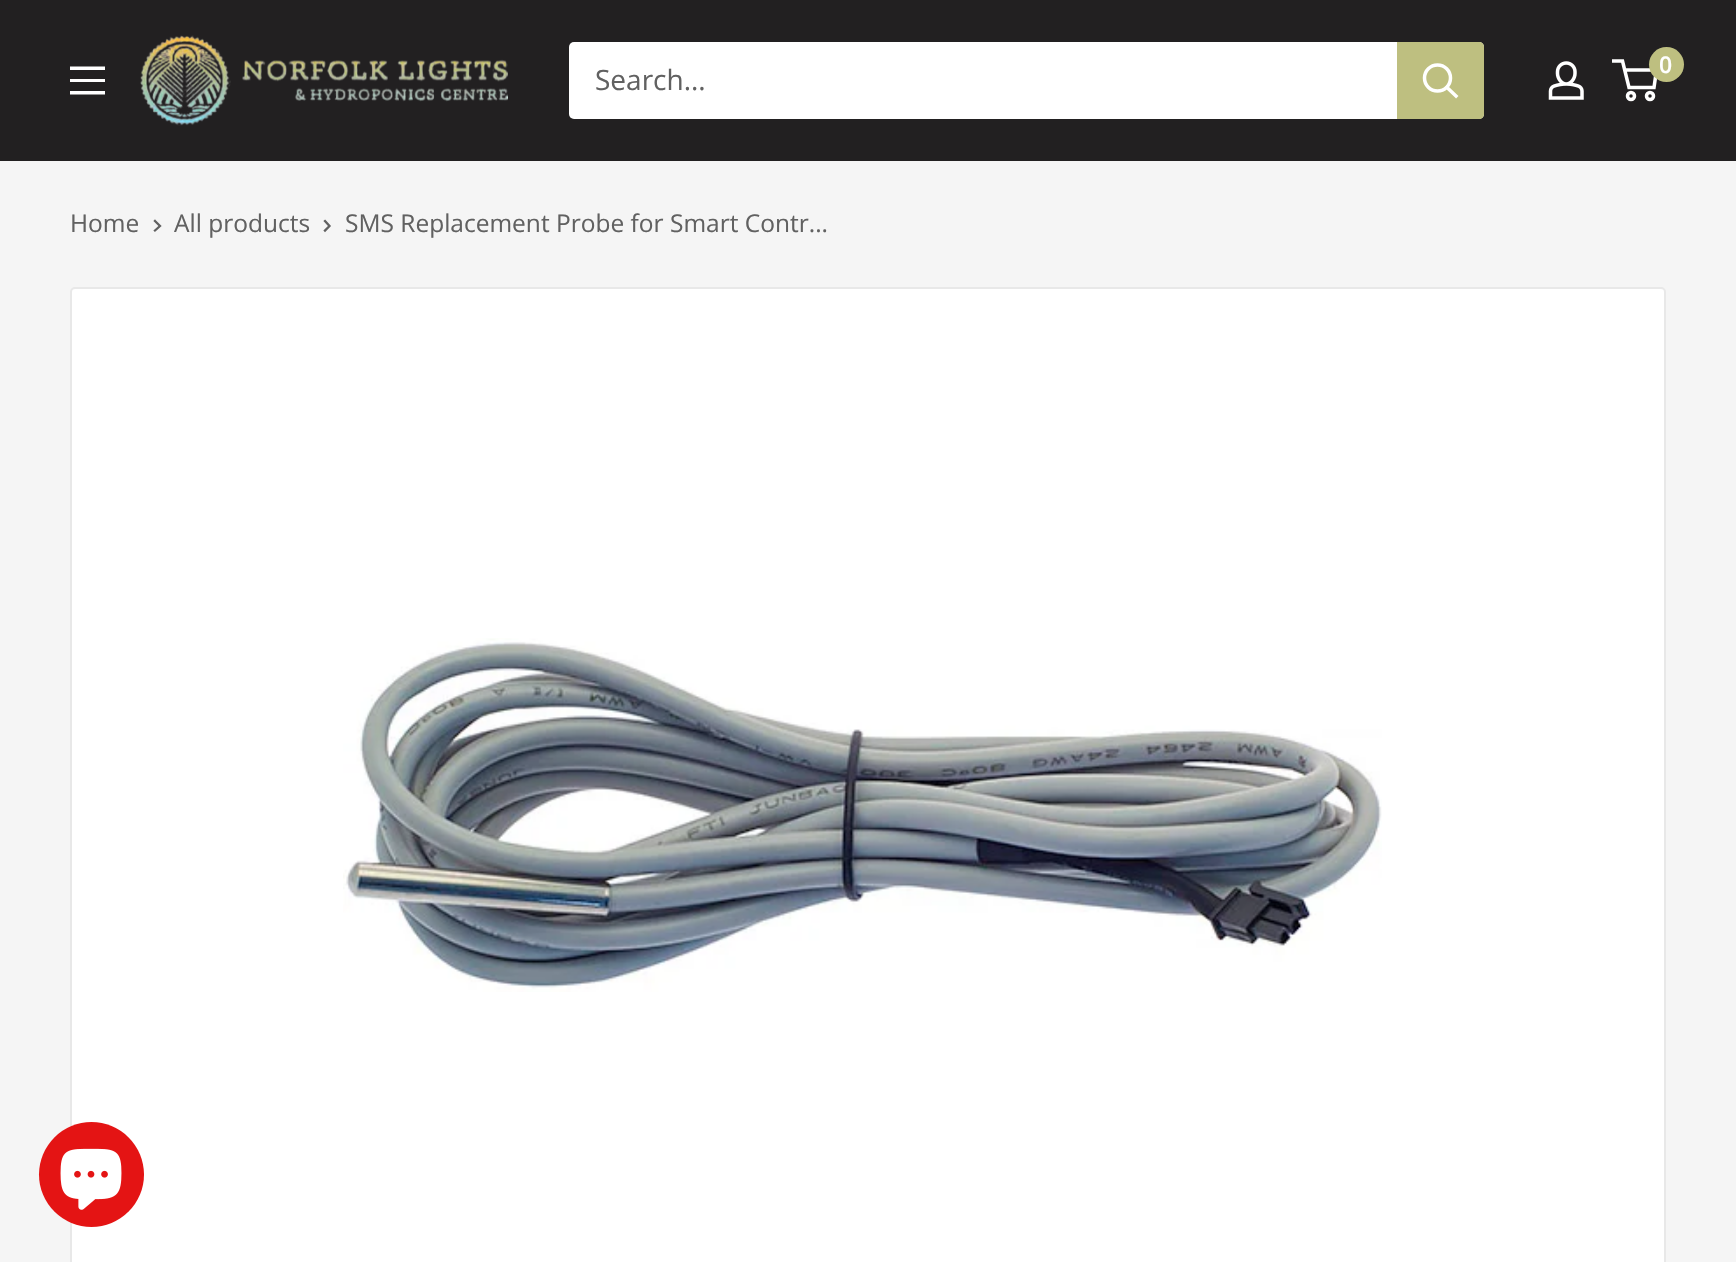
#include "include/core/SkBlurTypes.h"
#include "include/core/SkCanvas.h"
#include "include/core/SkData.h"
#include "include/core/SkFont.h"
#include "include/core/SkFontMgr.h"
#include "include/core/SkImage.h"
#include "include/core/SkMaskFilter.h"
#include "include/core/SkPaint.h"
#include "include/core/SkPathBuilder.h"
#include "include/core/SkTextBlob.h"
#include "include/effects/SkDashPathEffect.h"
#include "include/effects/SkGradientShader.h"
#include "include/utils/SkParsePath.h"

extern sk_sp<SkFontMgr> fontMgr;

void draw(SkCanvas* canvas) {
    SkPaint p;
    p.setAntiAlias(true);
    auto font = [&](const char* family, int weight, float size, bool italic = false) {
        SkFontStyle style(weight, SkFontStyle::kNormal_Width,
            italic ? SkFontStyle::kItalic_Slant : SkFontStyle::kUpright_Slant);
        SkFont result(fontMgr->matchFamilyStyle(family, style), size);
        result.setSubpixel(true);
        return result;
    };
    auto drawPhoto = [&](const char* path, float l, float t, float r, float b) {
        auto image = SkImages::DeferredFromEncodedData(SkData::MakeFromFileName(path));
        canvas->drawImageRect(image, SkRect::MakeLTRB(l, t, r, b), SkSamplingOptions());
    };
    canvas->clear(0xFFF5F5F5);
    p.setColor(0xFF222021);
    canvas->drawRect(SkRect::MakeLTRB(0, 0, 1736, 161), p);
    p.setColor(0xFFFFFFFF);
    canvas->drawPath(SkPathBuilder(SkPathFillType::kEvenOdd).moveTo(70, 91).lineTo(105, 91).lineTo(105, 94.5f).lineTo(70, 94.5f).close().moveTo(70, 66.5f).lineTo(105, 66.5f).lineTo(105, 70).lineTo(70, 70).close().moveTo(70, 79).lineTo(105, 79).lineTo(105, 82).lineTo(70, 82).close().detach(), p);
    drawPhoto("media/1.png", 140, 35, 508, 126);
    canvas->drawRoundRect(SkRect::MakeLTRB(569, 42, 1484, 119), 5, 5, p);
    auto font1 = font("Open Sans", 400, 28);
    p.setColor(0xFF616161);
    canvas->drawString("Search...", 595, 90, font1, p);
    p.setColor(0xFFBEBF80);
    canvas->drawPath(SkPathBuilder().moveTo(1397, 42).lineTo(1479, 42).cubicTo(1482, 42, 1484, 44, 1484, 47).lineTo(1484, 114).cubicTo(1484, 117, 1482, 119, 1479, 119).lineTo(1397, 119).close().detach(), p);
    p.setStyle(SkPaint::kStroke_Style);
    p.setStrokeWidth(3.5f);
    p.setStrokeCap(SkPaint::kSquare_Cap);
    p.setColor(0xFFFFFFFF);
    canvas->drawPath(SkPathBuilder().moveTo(1456, 96).lineTo(1447, 87.5f).detach(), p);
    p.setStrokeCap(SkPaint::kButt_Cap);
    canvas->drawCircle(1437.5f, 78, 13, p);
    drawPhoto("media/2.png", 1548, 61, 1584, 100);
    canvas->drawCircle(1631, 96, 3.5f, p);
    canvas->drawCircle(1650, 96, 3.5f, p);
    canvas->drawPath(SkPathBuilder().moveTo(1624.5f, 70).lineTo(1656.5f, 70).lineTo(1654, 87.5f).lineTo(1629, 87.5f).lineTo(1622.5f, 61).lineTo(1612, 61).detach(), p);
    p.setStyle(SkPaint::kFill_Style);
    p.setColor(0xFFBEBF80);
    canvas->drawCircle(1666.5f, 64.5f, 17.5f, p);
    auto font2 = font("Open Sans", 600, 23);
    p.setColor(0xFFFFFFFF);
    canvas->drawString("0", 1659, 73, font2, p);
    auto font3 = font("Open Sans", 400, 24.5f);
    p.setColor(0xFF616161);
    canvas->drawString("Home", 70, 232, font3, p);
    p.setStyle(SkPaint::kStroke_Style);
    p.setStrokeWidth(2.3f);
    p.setStrokeCap(SkPaint::kSquare_Cap);
    canvas->drawPath(SkPathBuilder().moveTo(155, 221).lineTo(160, 226).lineTo(155, 230.5f).detach(), p);
    p.setStyle(SkPaint::kFill_Style);
    canvas->drawString("All products", 174, 232, font3, p);
    p.setStyle(SkPaint::kStroke_Style);
    canvas->drawPath(SkPathBuilder().moveTo(325, 221).lineTo(329.5f, 226).lineTo(325, 230.5f).detach(), p);
    p.setStyle(SkPaint::kFill_Style);
    canvas->drawString("SMS Replacement Probe for Smart Contr...", 345, 232, font3, p);
    p.setColor(0xFFFFFFFF);
    canvas->drawRoundRect(SkRect::MakeLTRB(71, 288, 1665, 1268), 4, 4, p);
    p.setStyle(SkPaint::kStroke_Style);
    p.setStrokeWidth(2);
    p.setStrokeCap(SkPaint::kButt_Cap);
    p.setColor(0xFFE8E8E8);
    canvas->drawRoundRect(SkRect::MakeLTRB(71, 288, 1665, 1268), 4, 4, p);
    drawPhoto("media/3.png", 343, 638, 1382, 992);
    p.setStyle(SkPaint::kFill_Style);
    p.setColor(0xFFE41414);
    canvas->drawCircle(91.5f, 1174.5f, 52.5f, p);
    drawPhoto("media/4.png", 60, 1148, 122, 1210);
}
